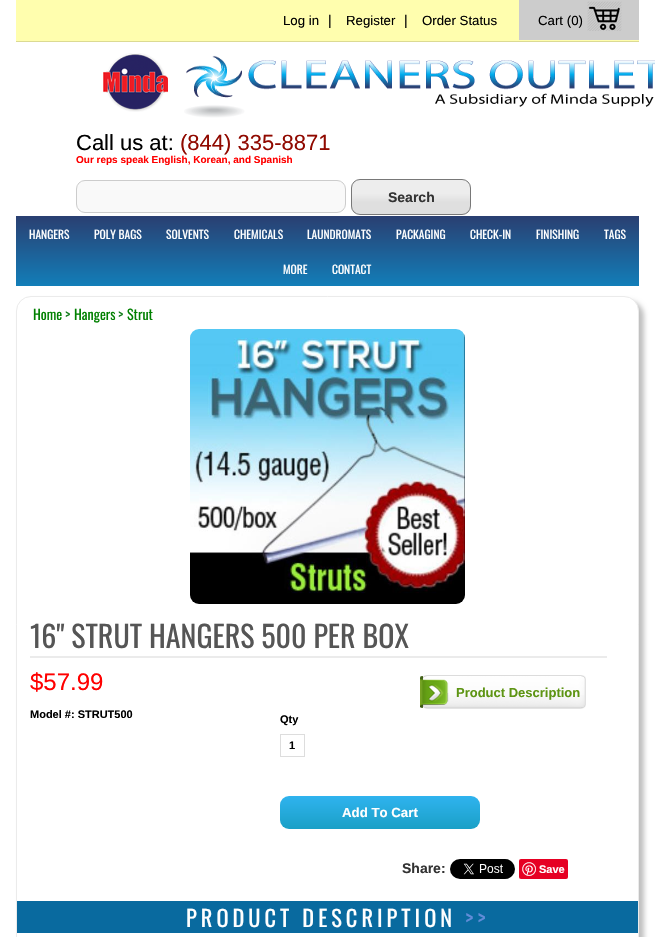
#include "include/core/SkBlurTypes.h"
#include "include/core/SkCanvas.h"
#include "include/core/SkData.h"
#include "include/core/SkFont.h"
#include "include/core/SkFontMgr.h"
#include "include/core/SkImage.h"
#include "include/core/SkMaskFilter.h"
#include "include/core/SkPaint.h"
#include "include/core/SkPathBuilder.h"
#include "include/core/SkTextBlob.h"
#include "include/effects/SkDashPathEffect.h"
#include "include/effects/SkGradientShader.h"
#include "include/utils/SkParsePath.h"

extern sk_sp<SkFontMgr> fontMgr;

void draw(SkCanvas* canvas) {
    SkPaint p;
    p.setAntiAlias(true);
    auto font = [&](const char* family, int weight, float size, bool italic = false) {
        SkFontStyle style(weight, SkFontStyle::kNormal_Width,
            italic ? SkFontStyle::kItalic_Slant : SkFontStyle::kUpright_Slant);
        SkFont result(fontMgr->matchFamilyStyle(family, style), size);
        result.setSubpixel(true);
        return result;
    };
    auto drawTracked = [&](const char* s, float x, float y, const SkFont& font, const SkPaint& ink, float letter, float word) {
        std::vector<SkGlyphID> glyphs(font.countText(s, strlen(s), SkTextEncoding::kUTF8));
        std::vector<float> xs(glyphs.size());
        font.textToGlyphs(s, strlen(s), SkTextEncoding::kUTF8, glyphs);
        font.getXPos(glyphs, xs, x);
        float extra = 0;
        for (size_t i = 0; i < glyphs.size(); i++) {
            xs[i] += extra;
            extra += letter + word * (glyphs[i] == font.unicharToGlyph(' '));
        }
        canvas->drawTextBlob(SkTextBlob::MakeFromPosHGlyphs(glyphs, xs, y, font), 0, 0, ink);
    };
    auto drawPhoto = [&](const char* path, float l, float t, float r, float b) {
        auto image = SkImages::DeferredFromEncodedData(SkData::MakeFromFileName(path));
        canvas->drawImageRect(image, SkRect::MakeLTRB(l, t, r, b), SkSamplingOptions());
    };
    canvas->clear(0xFFFFFFFF);
    p.setColor(0xFFFFFEAE);
    canvas->drawRect(SkRect::MakeLTRB(16, 0, 639, 41), p);
    p.setColor(0xFFDBDA93);
    canvas->drawRect(SkRect::MakeLTRB(16, 41, 639, 42), p);
    auto font1 = font("Liberation Sans", 400, 13.25f);
    p.setColor(0xFF000000);
    canvas->drawString("Log in", 283, 25, font1, p);
    auto font2 = font("Liberation Sans", 400, 14);
    canvas->drawString("|", 328, 25, font2, p);
    canvas->drawString("Register", 346, 25, font1, p);
    canvas->drawString("|", 404, 25, font2, p);
    canvas->drawString("Order Status", 422, 25, font1, p);
    p.setColor(0xFFCCCCCC);
    canvas->drawRect(SkRect::MakeLTRB(519, 0, 639, 40), p);
    p.setColor(0xFF000000);
    canvas->drawString("Cart (0)", 538, 25, font1, p);
    drawPhoto("media/1.png", 587, 1, 622, 31);
    drawPhoto("media/2.png", 103, 53, 168, 112);
    drawPhoto("media/3.png", 184, 55, 655, 118);
    auto font3 = font("Liberation Sans", 400, 22);
    canvas->drawString("Call us at:", 76, 150, font3, p);
    p.setColor(0xFF900900);
    canvas->drawString("(844) 335-8871", 180, 150, font3, p);
    auto font4 = font("Liberation Sans", 700, 10);
    p.setColor(0xFFFF0000);
    canvas->drawString("Our reps speak English, Korean, and Spanish", 76, 163, font4, p);
    p.setColor(0xFFF9F9F9);
    canvas->drawRoundRect(SkRect::MakeLTRB(76.5f, 180.5f, 345.5f, 212.5f), 8.5f, 8.5f, p);
    p.setStyle(SkPaint::kStroke_Style);
    p.setStrokeWidth(1);
    p.setColor(0xFFCCCCCC);
    canvas->drawRoundRect(SkRect::MakeLTRB(76.5f, 180.5f, 345.5f, 212.5f), 8.5f, 8.5f, p);
    canvas->save();
    canvas->clipPath(SkPathBuilder().moveTo(360, 179).lineTo(462, 179).cubicTo(467, 179, 471, 183, 471, 188).lineTo(471, 206).cubicTo(471, 211, 467, 215, 462, 215).lineTo(360, 215).cubicTo(355, 215, 351, 211, 351, 206).lineTo(351, 188).cubicTo(351, 183, 355, 179, 360, 179).close().detach(), true);
    p.setStyle(SkPaint::kFill_Style);
    {
        const SkColor colors[] = {0xFFEDEDED, 0xFFDFDFDF};
        const float stops[] = {0.39f, 0.66f};
        const SkPoint ends[] = {{352, 180}, {352, 214}};
        p.setShader(SkGradientShader::MakeLinear(ends, colors, stops, 2, SkTileMode::kClamp));
        p.setAlpha(255);
    }
    canvas->drawRect(SkRect::MakeLTRB(351, 180, 471, 214), p);
    canvas->restore();
    p.setStyle(SkPaint::kStroke_Style);
    p.setShader(nullptr);
    p.setColor(0xFF787878);
    canvas->drawRoundRect(SkRect::MakeLTRB(351.5f, 179.5f, 470.5f, 214.5f), 8.5f, 8.5f, p);
    auto font5 = font("Liberation Sans", 700, 14);
    p.setStyle(SkPaint::kFill_Style);
    p.setColor(0xFF333333);
    canvas->drawString("Search", 388, 202, font5, p);
    {
        const SkColor colors[] = {0xFF127EB9, 0xFF2A3F71};
        const float stops[] = {0, 1};
        const SkPoint ends[] = {{328, 286}, {328, 216}};
        p.setShader(SkGradientShader::MakeLinear(ends, colors, stops, 2, SkTileMode::kClamp));
        p.setAlpha(255);
    }
    canvas->drawRect(SkRect::MakeLTRB(16, 216, 639, 286), p);
    auto font6 = font("Oswald", 400, 11.5f);
    p.setShader(nullptr);
    p.setColor(0xFFFFFFFF);
    {
        const struct { const char* s; float x, y; } items[] = {
            {"HANGERS", 29, 239},
            {"POLY BAGS", 94, 239},
            {"SOLVENTS", 166, 239},
            {"CHEMICALS", 234, 239},
            {"LAUNDROMATS", 307, 239},
            {"PACKAGING", 396, 239},
            {"CHECK-IN", 470, 239},
            {"FINISHING", 536, 239},
            {"TAGS", 604, 239},
            {"MORE", 283, 274},
            {"CONTACT", 332, 274},
        };
        for (auto [s, x, y] : items) {
            canvas->drawString(s, x, y, font6, p);
        }
    }
    p.setColor(0x40000000);
    p.setMaskFilter(SkMaskFilter::MakeBlur(kNormal_SkBlurStyle, 2.5f));
    canvas->drawRoundRect(SkRect::MakeLTRB(21, 301, 644, 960), 15, 15, p);
    p.setMaskFilter(nullptr);
    p.setColor(0xFFFFFFFF);
    canvas->drawRoundRect(SkRect::MakeLTRB(16.5f, 296.5f, 638.5f, 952.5f), 14.5f, 14.5f, p);
    p.setStyle(SkPaint::kStroke_Style);
    p.setColor(0xFFEBEBEB);
    canvas->drawRoundRect(SkRect::MakeLTRB(16.5f, 296.5f, 638.5f, 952.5f), 14.5f, 14.5f, p);
    auto font7 = font("Oswald", 400, 14);
    p.setStyle(SkPaint::kFill_Style);
    p.setColor(0xFF008000);
    canvas->drawString("Home", 33, 320, font7, p);
    p.setColor(0xFF117C1A);
    canvas->drawString(">", 65, 320, font7, p);
    p.setColor(0xFF008000);
    canvas->drawString("Hangers", 74, 320, font7, p);
    p.setColor(0xFF117C1A);
    canvas->drawString(">", 118, 320, font7, p);
    p.setColor(0xFF008000);
    canvas->drawString("Strut", 127, 320, font7, p);
    drawPhoto("media/4.png", 190, 329, 465, 604);
    p.setColor(0xFFEBEBEB);
    canvas->drawRect(SkRect::MakeLTRB(30, 656, 607, 658), p);
    auto font8 = font("Oswald", 400, 30);
    p.setColor(0xFF555555);
    canvas->drawString("16\" STRUT HANGERS 500 PER BOX", 30, 648, font8, p);
    auto font9 = font("Liberation Sans", 400, 24);
    p.setColor(0xFFFF0000);
    canvas->drawString("$57.99", 30, 690, font9, p);
    drawPhoto("media/5.png", 420, 675, 586, 709);
    auto font10 = font("Liberation Sans", 700, 13);
    p.setColor(0xFF5D9413);
    canvas->drawString("Product Description", 456, 697, font10, p);
    auto font11 = font("Liberation Sans", 700, 11);
    p.setColor(0xFF000000);
    canvas->drawString("Model #: STRUT500", 30, 718, font11, p);
    canvas->drawString("Qty", 280, 723, font11, p);
    p.setStyle(SkPaint::kStroke_Style);
    p.setColor(0xFFDDDDDD);
    canvas->drawRect(SkRect::MakeLTRB(280.5f, 734.5f, 304.5f, 756.5f), p);
    p.setStyle(SkPaint::kFill_Style);
    p.setColor(0xFF000000);
    canvas->drawString("1", 289, 749, font11, p);
    {
        const SkColor colors[] = {0xFF2FB3EF, 0xFF1AA0C6};
        const float stops[] = {0, 1};
        const SkPoint ends[] = {{380, 796}, {380, 829}};
        p.setShader(SkGradientShader::MakeLinear(ends, colors, stops, 2, SkTileMode::kClamp));
        p.setAlpha(255);
    }
    canvas->drawRoundRect(SkRect::MakeLTRB(280, 796, 480, 829), 9, 9, p);
    auto font12 = font("Liberation Sans", 700, 13.25f);
    p.setShader(nullptr);
    p.setColor(0xFFFFFFFF);
    canvas->drawString("Add To Cart", 342, 817, font12, p);
    p.setColor(0xFF333333);
    canvas->drawString("Share:", 402, 873, font5, p);
    drawPhoto("media/6.png", 450, 859, 515, 879);
    p.setColor(0xFFE60023);
    canvas->drawRoundRect(SkRect::MakeLTRB(519, 859, 568, 879), 2, 2, p);
    drawPhoto("media/7.png", 522, 862, 536, 876);
    p.setColor(0xFFFFFFFF);
    canvas->drawString("Save", 539, 873, font11, p);
    p.setColor(0xFF096A9F);
    canvas->drawRect(SkRect::MakeLTRB(17, 901, 638, 933), p);
    auto font13 = font("Oswald", 400, 22.4f);
    p.setColor(0xFFFFFFFF);
    drawTracked("PRODUCT DESCRIPTION", 186, 927, font13, p, 4, 0);
    p.setColor(0xFF618CD8);
    drawTracked(">>", 465, 927, font13, p, 4, 0);
}
